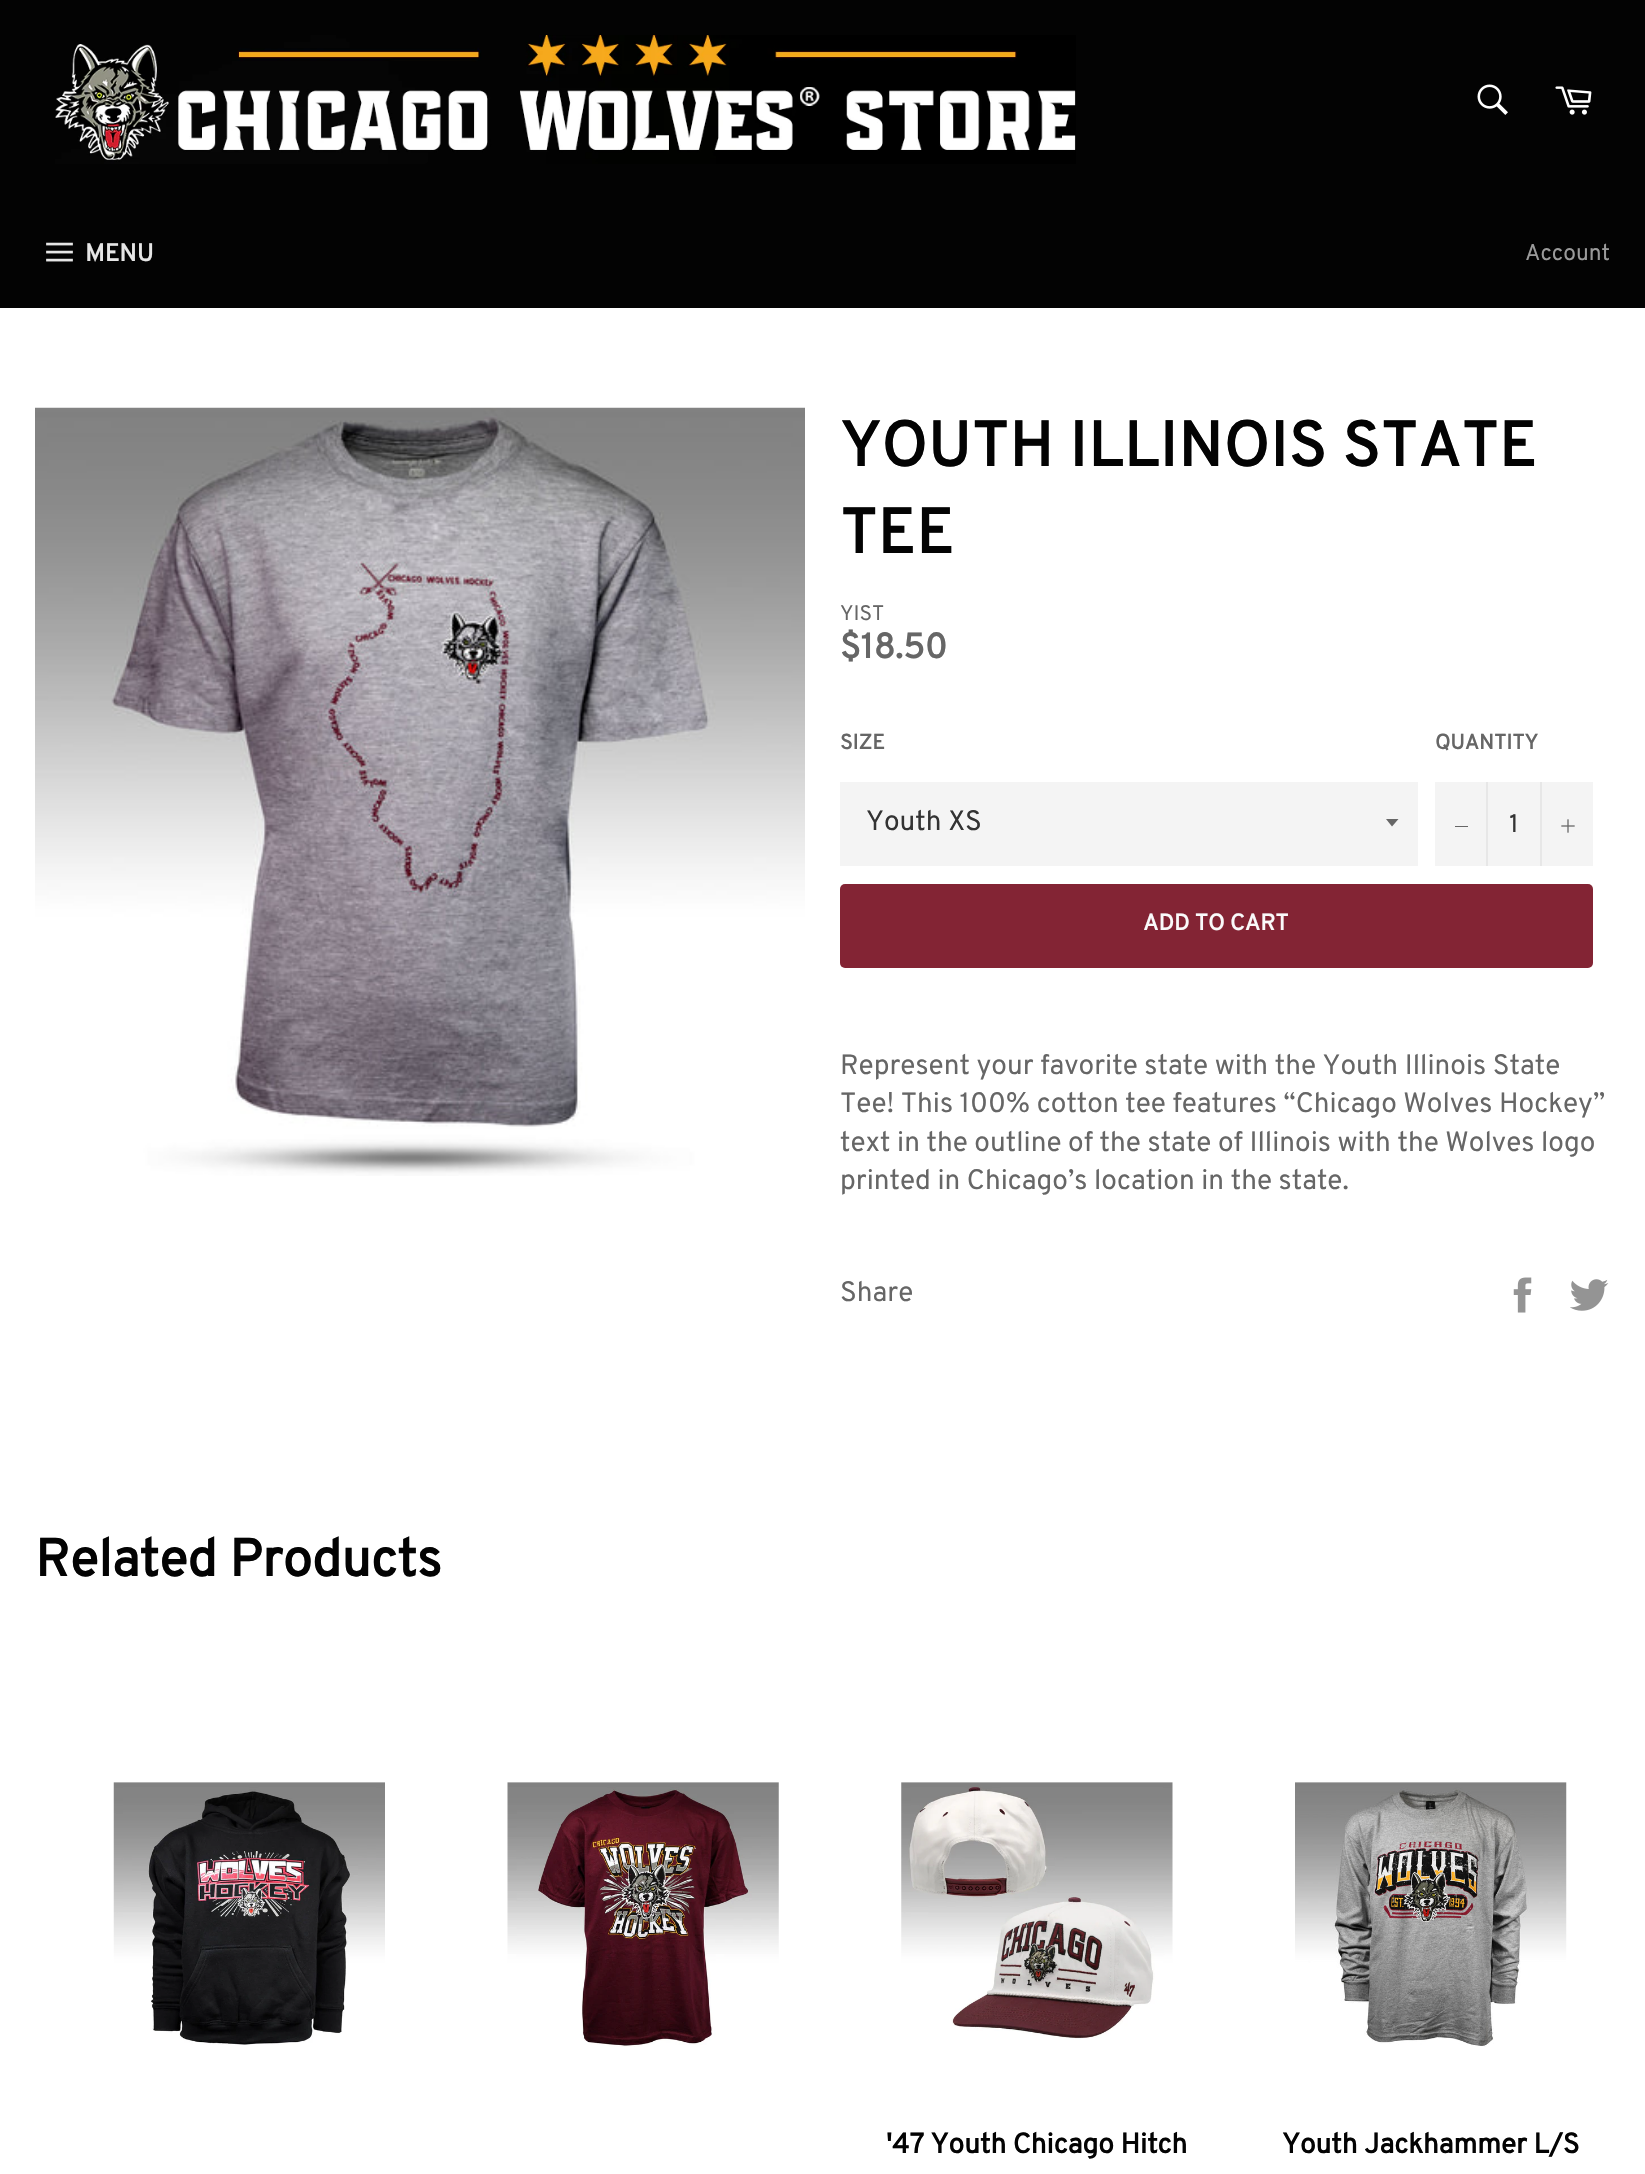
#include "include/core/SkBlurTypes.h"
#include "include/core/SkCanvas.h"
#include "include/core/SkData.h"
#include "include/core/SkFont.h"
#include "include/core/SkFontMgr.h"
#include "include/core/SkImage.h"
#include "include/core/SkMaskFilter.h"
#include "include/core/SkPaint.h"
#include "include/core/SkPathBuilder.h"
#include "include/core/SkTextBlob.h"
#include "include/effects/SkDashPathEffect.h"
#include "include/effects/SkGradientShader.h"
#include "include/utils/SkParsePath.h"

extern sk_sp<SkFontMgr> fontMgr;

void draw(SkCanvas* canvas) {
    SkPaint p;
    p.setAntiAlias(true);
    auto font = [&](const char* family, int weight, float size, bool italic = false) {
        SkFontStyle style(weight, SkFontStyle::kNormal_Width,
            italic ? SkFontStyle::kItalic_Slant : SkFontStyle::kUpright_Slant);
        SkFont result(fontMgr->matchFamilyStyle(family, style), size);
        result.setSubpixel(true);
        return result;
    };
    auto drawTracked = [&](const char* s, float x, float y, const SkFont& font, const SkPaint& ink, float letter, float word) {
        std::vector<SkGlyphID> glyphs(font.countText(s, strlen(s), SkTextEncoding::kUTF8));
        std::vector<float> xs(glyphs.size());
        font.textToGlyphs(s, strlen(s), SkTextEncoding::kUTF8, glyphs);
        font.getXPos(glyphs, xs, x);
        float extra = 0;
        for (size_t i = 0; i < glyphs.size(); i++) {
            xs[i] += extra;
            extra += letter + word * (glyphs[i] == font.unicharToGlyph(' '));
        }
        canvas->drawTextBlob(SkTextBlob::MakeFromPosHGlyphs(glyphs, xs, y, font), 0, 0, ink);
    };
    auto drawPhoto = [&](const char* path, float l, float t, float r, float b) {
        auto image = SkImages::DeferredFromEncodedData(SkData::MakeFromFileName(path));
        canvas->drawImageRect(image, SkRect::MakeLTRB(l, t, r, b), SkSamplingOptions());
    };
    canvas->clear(0xFFFFFFFF);
    p.setColor(0xFF030303);
    canvas->drawRect(SkRect::MakeLTRB(0, 0, 1645, 308), p);
    drawPhoto("media/1.png", 55, 35, 1076, 164);
    drawPhoto("media/2.png", 1477, 84, 1508, 115);
    drawPhoto("media/3.png", 1555, 86, 1592, 115);
    drawPhoto("media/4.png", 46, 242, 73, 262);
    auto font1 = font("Overpass", 700, 24.5f);
    p.setColor(0xFFE6E6E6);
    canvas->drawString("MENU", 85, 261, font1, p);
    auto font2 = font("Overpass", 400, 22.75f);
    p.setColor(0xFF9A9A9A);
    canvas->drawString("Account", 1525, 260, font2, p);
    drawPhoto("media/5.png", 35, 407, 805, 1176);
    auto font3 = font("Overpass", 700, 63);
    p.setColor(0xFF030303);
    drawTracked("YOUTH ILLINOIS STATE", 840, 466, font3, p, 0.6f, 0);
    drawTracked("TEE", 840, 553, font3, p, 0.6f, 0);
    auto font4 = font("Overpass", 400, 21);
    p.setColor(0xFF666666);
    canvas->drawString("YIST", 840, 620, font4, p);
    auto font5 = font("Overpass", 700, 35);
    canvas->drawString("$18.50", 840, 658, font5, p);
    auto font6 = font("Overpass", 700, 21);
    canvas->drawString("SIZE", 840, 749, font6, p);
    p.setColor(0xFFF4F4F4);
    canvas->drawRect(SkRect::MakeLTRB(840, 782, 1418, 866), p);
    p.setColor(0xFF666666);
    canvas->drawPath(SkPathBuilder().moveTo(1386, 819).lineTo(1392, 826.5f).lineTo(1398.5f, 819).close().detach(), p);
    auto font7 = font("Overpass", 400, 28);
    p.setColor(0xFF333333);
    canvas->drawString("Youth XS", 866, 830, font7, p);
    p.setColor(0xFF666666);
    canvas->drawString("QUANTITY", 1435, 749, font6, p);
    {
        const struct { float l, t, r, b; SkColor color; } items[] = {
            {1435, 782, 1593, 866, 0xFFF4F4F4},
            {1486, 782, 1488, 866, 0xFFE7E7E7},
            {1455, 826, 1468, 827, 0xFF666666},
        };
        for (auto [l, t, r, b, color] : items) {
            p.setColor(color);
            canvas->drawRect(SkRect::MakeLTRB(l, t, r, b), p);
        }
    }
    auto font8 = font("Karla", 400, 28);
    p.setColor(0xFF333333);
    canvas->drawString("1", 1509, 832, font8, p);
    p.setColor(0xFFE7E7E7);
    canvas->drawRect(SkRect::MakeLTRB(1540, 782, 1542, 866), p);
    drawPhoto("media/6.png", 1561, 819, 1575, 833);
    p.setColor(0xFF832434);
    canvas->drawRoundRect(SkRect::MakeLTRB(840, 884, 1593, 968), 5, 5, p);
    auto font9 = font("Overpass", 700, 22.75f);
    p.setColor(0xFFFAFAFA);
    canvas->drawString("ADD TO CART", 1143, 930, font9, p);
    p.setColor(0xFF666666);
    {
        const struct { const char* s; float x, y; } items[] = {
            {"Represent your favorite state with the Youth Illinois State", 840, 1074},
            {"Tee! This 100% cotton tee features “Chicago Wolves Hockey”", 840, 1112},
            {"text in the outline of the state of Illinois with the Wolves logo", 840, 1151},
            {"printed in Chicago’s location in the state.", 840, 1189},
            {"Share", 840, 1301},
        };
        for (auto [s, x, y] : items) {
            canvas->drawString(s, x, y, font7, p);
        }
    }
    drawPhoto("media/7.png", 1513, 1277, 1532, 1313);
    drawPhoto("media/8.png", 1570, 1279, 1609, 1311);
    auto font10 = font("Overpass", 700, 52.5f);
    p.setColor(0xFF030303);
    canvas->drawString("Related Products", 35, 1576, font10, p);
    drawPhoto("media/9.png", 113, 1782, 385, 2045);
    drawPhoto("media/10.png", 507, 1782, 779, 2047);
    drawPhoto("media/11.png", 901, 1782, 1173, 2040);
    auto font11 = font("Overpass", 700, 28);
    canvas->drawString("'47 Youth Chicago Hitch", 886, 2153, font11, p);
    drawPhoto("media/12.png", 1295, 1782, 1567, 2047);
    canvas->drawString("Youth Jackhammer L/S", 1282, 2153, font11, p);
}
